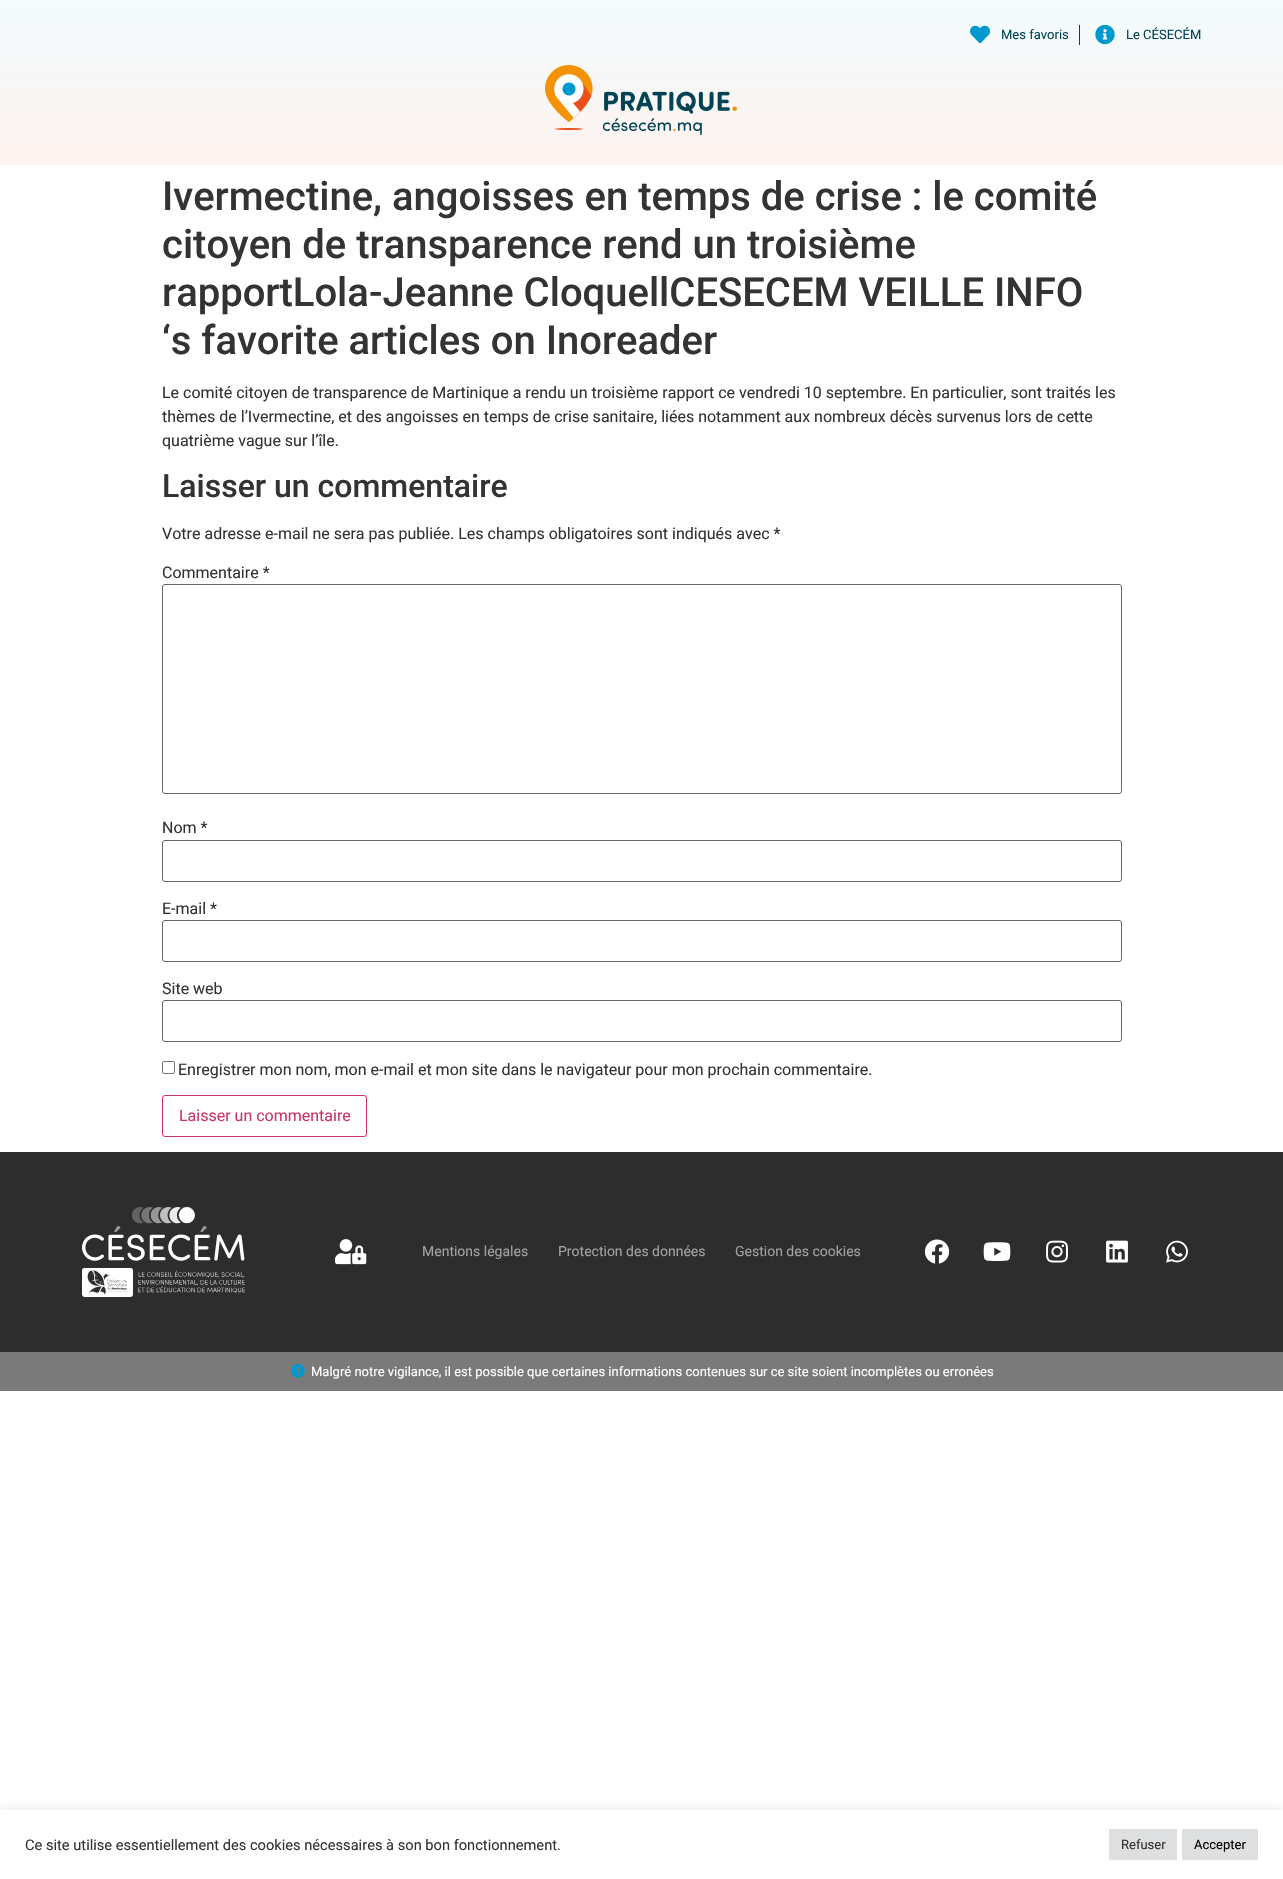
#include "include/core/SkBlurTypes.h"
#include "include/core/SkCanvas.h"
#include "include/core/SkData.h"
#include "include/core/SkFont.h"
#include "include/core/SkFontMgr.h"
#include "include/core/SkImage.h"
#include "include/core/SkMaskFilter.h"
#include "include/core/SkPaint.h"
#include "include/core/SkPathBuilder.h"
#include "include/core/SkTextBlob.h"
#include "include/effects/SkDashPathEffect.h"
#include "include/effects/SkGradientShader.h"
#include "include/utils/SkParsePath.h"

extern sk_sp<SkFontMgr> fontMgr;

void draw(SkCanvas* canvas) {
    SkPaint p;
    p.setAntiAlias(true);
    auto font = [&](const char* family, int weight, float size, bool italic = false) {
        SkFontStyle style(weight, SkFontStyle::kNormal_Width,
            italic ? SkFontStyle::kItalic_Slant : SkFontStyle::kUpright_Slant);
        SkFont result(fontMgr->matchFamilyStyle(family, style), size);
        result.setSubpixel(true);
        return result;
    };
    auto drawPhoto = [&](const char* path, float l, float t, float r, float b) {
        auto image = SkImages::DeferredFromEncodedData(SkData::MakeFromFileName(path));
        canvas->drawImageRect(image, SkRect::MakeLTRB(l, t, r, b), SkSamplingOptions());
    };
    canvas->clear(0xFFFFFFFF);
    {
        const SkColor colors[] = {0xFFF3FBFD, 0xFFFEF3F0};
        const float stops[] = {0, 1};
        const SkPoint ends[] = {{642, 0}, {642, 165}};
        p.setShader(SkGradientShader::MakeLinear(ends, colors, stops, 2, SkTileMode::kClamp));
        p.setAlpha(255);
    }
    canvas->drawRect(SkRect::MakeLTRB(0, 0, 1283, 165), p);
    drawPhoto("media/1.png", 970, 25, 990, 44);
    auto font1 = font("Roboto", 400, 13);
    p.setShader(nullptr);
    p.setColor(0xFF024455);
    canvas->drawString("Mes favoris", 1001, 39, font1, p);
    canvas->drawRect(SkRect::MakeLTRB(1079, 25, 1080, 45), p);
    drawPhoto("media/2.png", 1095, 25, 1115, 45);
    canvas->drawString("Le CÉSECÉM", 1126, 39, font1, p);
    drawPhoto("media/3.png", 545, 65, 737, 135);
    auto font2 = font("Roboto", 500, 40);
    p.setColor(0xFF333333);
    {
        const struct { const char* s; float x, y; } items[] = {
            {"Ivermectine, angoisses en temps de crise : le comité", 162, 210},
            {"citoyen de transparence rend un troisième", 162, 258},
            {"rapportLola-Jeanne CloquellCESECEM VEILLE INFO", 162, 306},
            {"‘s favorite articles on Inoreader", 162, 354},
        };
        for (auto [s, x, y] : items) {
            canvas->drawString(s, x, y, font2, p);
        }
    }
    auto font3 = font("Roboto", 400, 16);
    {
        const struct { const char* s; float x, y; } items[] = {
            {"Le comité citoyen de transparence de Martinique a rendu un troisième rapport ce vendredi 10 septembre. En particulier, sont traités les", 162, 398},
            {"thèmes de l’Ivermectine, et des angoisses en temps de crise sanitaire, liées notamment aux nombreux décès survenus lors de cette", 162, 422},
            {"quatrième vague sur l’île.", 162, 446},
        };
        for (auto [s, x, y] : items) {
            canvas->drawString(s, x, y, font3, p);
        }
    }
    auto font4 = font("Roboto", 500, 32);
    canvas->drawString("Laisser un commentaire", 162, 497, font4, p);
    canvas->drawString("Votre adresse e-mail ne sera pas publiée. Les champs obligatoires sont indiqués avec *", 162, 539, font3, p);
    canvas->drawString("Commentaire *", 162, 578, font3, p);
    p.setStyle(SkPaint::kStroke_Style);
    p.setStrokeWidth(1);
    p.setColor(0xFF666666);
    canvas->drawRoundRect(SkRect::MakeLTRB(162.5f, 584.5f, 1121.5f, 793.5f), 2.5f, 2.5f, p);
    p.setStyle(SkPaint::kFill_Style);
    p.setColor(0xFF333333);
    canvas->drawString("Nom *", 162, 833, font3, p);
    p.setStyle(SkPaint::kStroke_Style);
    p.setColor(0xFF666666);
    canvas->drawRoundRect(SkRect::MakeLTRB(162.5f, 840.5f, 1121.5f, 881.5f), 2.5f, 2.5f, p);
    p.setStyle(SkPaint::kFill_Style);
    p.setColor(0xFF333333);
    canvas->drawString("E-mail *", 162, 914, font3, p);
    p.setStyle(SkPaint::kStroke_Style);
    p.setColor(0xFF666666);
    canvas->drawRoundRect(SkRect::MakeLTRB(162.5f, 920.5f, 1121.5f, 961.5f), 2.5f, 2.5f, p);
    p.setStyle(SkPaint::kFill_Style);
    p.setColor(0xFF333333);
    canvas->drawString("Site web", 162, 994, font3, p);
    p.setStyle(SkPaint::kStroke_Style);
    p.setColor(0xFF666666);
    canvas->drawRoundRect(SkRect::MakeLTRB(162.5f, 1000.5f, 1121.5f, 1041.5f), 2.5f, 2.5f, p);
    p.setColor(0xFF767676);
    canvas->drawRoundRect(SkRect::MakeLTRB(162.5f, 1061.5f, 174.5f, 1073.5f), 1.5f, 1.5f, p);
    p.setStyle(SkPaint::kFill_Style);
    p.setColor(0xFF333333);
    canvas->drawString("Enregistrer mon nom, mon e-mail et mon site dans le navigateur pour mon prochain commentaire.", 178, 1075, font3, p);
    p.setStyle(SkPaint::kStroke_Style);
    p.setColor(0xFFCC3366);
    canvas->drawRoundRect(SkRect::MakeLTRB(162.5f, 1095.5f, 366.5f, 1136.5f), 2.5f, 2.5f, p);
    p.setStyle(SkPaint::kFill_Style);
    canvas->drawString("Laisser un commentaire", 179, 1121, font3, p);
    p.setColor(0xFF2D2D2D);
    canvas->drawRect(SkRect::MakeLTRB(0, 1152, 1283, 1352), p);
    drawPhoto("media/4.png", 82, 1207, 245, 1297);
    drawPhoto("media/5.png", 335, 1239, 367, 1265);
    auto font5 = font("Roboto", 400, 14);
    p.setColor(0xFFA2A2A2);
    {
        const struct { const char* s; float x, y; } items[] = {
            {"Mentions légales", 422, 1256},
            {"Protection des données", 558, 1256},
            {"Gestion des cookies", 735, 1256},
        };
        for (auto [s, x, y] : items) {
            canvas->drawString(s, x, y, font5, p);
        }
    }
    drawPhoto("media/6.png", 924, 1239, 950, 1264);
    drawPhoto("media/7.png", 983, 1242, 1011, 1261);
    drawPhoto("media/8.png", 1046, 1240, 1068, 1263);
    drawPhoto("media/9.png", 1106, 1240, 1128, 1263);
    drawPhoto("media/10.png", 1166, 1240, 1188, 1263);
    p.setColor(0xFF7A7A7A);
    canvas->drawRect(SkRect::MakeLTRB(0, 1352, 1283, 1391), p);
    drawPhoto("media/11.png", 291, 1364, 305, 1378);
    p.setColor(0xFFFFFFFF);
    canvas->drawString("Malgré notre vigilance, il est possible que certaines informations contenues sur ce site soient incomplètes ou erronées", 311, 1376, font1, p);
    canvas->save();
    canvas->clipRect(SkRect::MakeLTRB(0, 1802, 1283, 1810));
    p.setColor(0x4DACABAB);
    p.setMaskFilter(SkMaskFilter::MakeBlur(kNormal_SkBlurStyle, 5));
    canvas->drawRect(SkRect::MakeLTRB(0, 1809, 1283, 1878), p);
    p.setMaskFilter(nullptr);
    canvas->restore();
    auto font6 = font("Roboto", 400, 14.65f);
    p.setColor(0xFF333333);
    canvas->drawString("Ce site utilise essentiellement des cookies nécessaires à son bon fonctionnement.", 25, 1850, font6, p);
    p.setColor(0xFFDEDFE0);
    canvas->drawRect(SkRect::MakeLTRB(1109, 1829, 1177, 1860), p);
    p.setColor(0xFF333333);
    canvas->drawString("Refuser", 1121, 1849, font1, p);
    p.setColor(0xFFDEDFE0);
    canvas->drawRect(SkRect::MakeLTRB(1182, 1829, 1258, 1860), p);
    p.setColor(0xFF000000);
    canvas->drawString("Accepter", 1194, 1849, font1, p);
}
